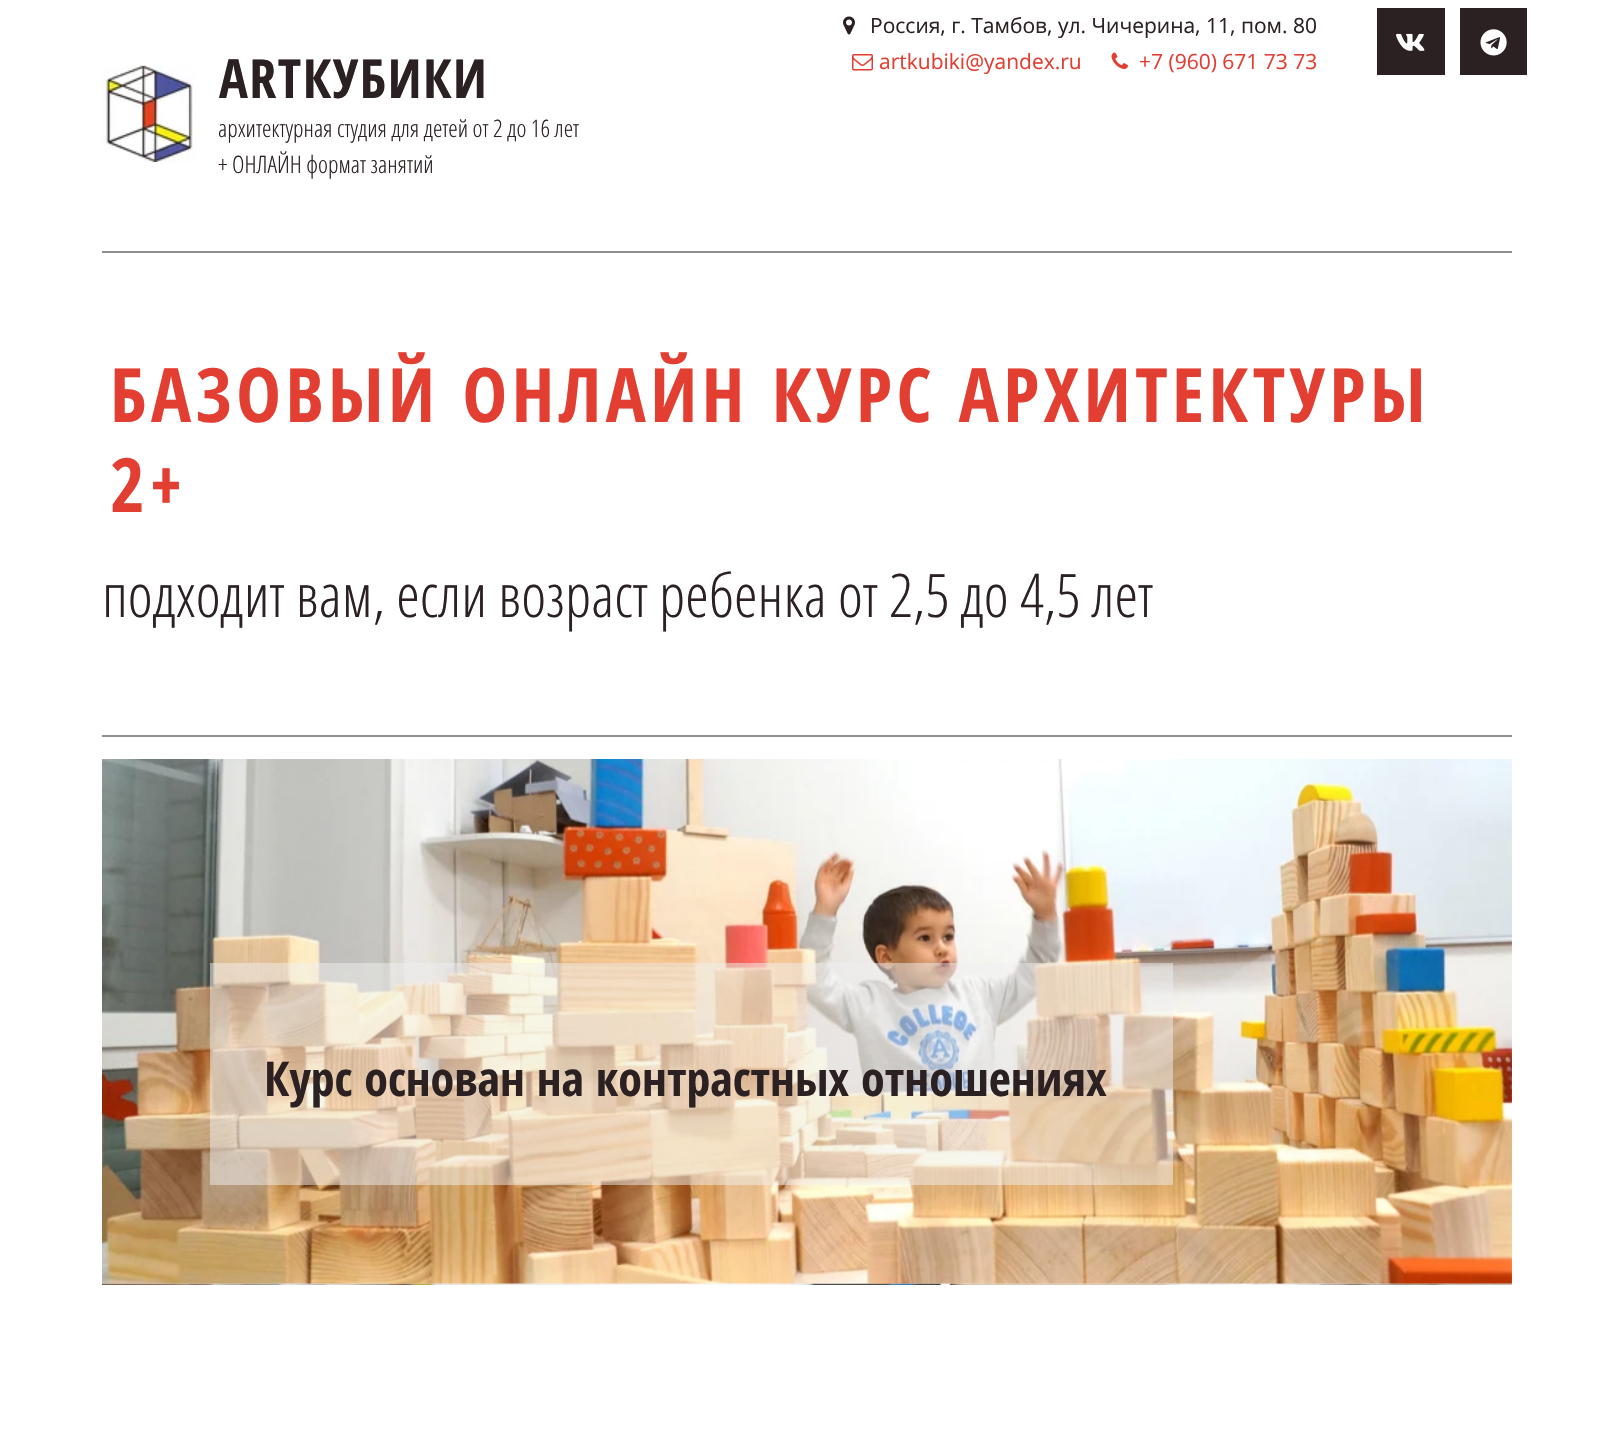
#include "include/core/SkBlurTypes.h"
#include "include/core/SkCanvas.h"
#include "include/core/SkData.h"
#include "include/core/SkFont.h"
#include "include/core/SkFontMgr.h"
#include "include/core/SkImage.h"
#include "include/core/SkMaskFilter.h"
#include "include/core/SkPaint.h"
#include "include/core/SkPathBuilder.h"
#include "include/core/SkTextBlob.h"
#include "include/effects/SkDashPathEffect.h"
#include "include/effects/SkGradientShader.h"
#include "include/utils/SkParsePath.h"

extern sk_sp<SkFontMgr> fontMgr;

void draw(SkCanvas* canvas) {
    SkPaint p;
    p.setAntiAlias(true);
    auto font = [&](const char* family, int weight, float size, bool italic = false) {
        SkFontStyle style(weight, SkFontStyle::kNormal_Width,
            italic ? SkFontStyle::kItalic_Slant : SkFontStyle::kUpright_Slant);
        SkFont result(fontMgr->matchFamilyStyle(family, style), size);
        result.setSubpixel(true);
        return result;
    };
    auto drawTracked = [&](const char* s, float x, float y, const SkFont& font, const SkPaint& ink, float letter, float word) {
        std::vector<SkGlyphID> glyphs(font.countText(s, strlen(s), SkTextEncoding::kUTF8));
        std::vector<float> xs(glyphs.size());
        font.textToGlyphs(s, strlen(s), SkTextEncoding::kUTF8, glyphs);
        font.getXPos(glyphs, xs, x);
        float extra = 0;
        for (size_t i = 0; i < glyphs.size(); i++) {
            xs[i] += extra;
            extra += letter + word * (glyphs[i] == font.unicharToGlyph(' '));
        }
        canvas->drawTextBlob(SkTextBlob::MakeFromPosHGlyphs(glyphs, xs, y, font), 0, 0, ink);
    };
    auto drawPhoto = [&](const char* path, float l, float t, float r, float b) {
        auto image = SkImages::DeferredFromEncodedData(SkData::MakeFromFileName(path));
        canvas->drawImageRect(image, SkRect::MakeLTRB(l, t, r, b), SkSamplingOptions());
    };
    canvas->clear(0xFFFFFFFF);
    drawPhoto("media/1.png", 843, 16, 855, 35);
    auto font1 = font("Open Sans", 400, 21);
    p.setColor(0xFF2B2122);
    canvas->drawString("Россия, г. Тамбов, ул. Чичерина, 11, пом. 80", 870, 33, font1, p);
    drawPhoto("media/2.png", 852, 54, 873, 71);
    p.setColor(0xFFE33E32);
    canvas->drawString("artkubiki@yandex.ru", 879, 69, font1, p);
    drawPhoto("media/3.png", 1111, 52, 1128, 69);
    canvas->drawString("+7 (960) 671 73 73", 1139, 69, font1, p);
    p.setColor(0xFF2B2122);
    canvas->drawRect(SkRect::MakeLTRB(1377, 8, 1445, 75), p);
    drawPhoto("media/4.png", 1396, 33, 1425, 51);
    canvas->drawRect(SkRect::MakeLTRB(1460, 8, 1527, 75), p);
    drawPhoto("media/5.png", 1480, 29, 1507, 56);
    drawPhoto("media/6.png", 102, 65, 197, 162);
    auto font2 = font("Open Sans Condensed", 700, 54);
    drawTracked("ARTКУБИКИ", 219, 98, font2, p, 1.5f, 0);
    auto font3 = font("Open Sans Condensed", 300, 24);
    canvas->drawString("архитектурная студия для детей от 2 до 16 лет", 218, 137, font3, p);
    canvas->drawString("+ ОНЛАЙН формат занятий", 218, 173, font3, p);
    p.setColor(0xFF8F8F8F);
    canvas->drawRect(SkRect::MakeLTRB(102, 251, 1512, 253), p);
    auto font4 = font("Open Sans Condensed", 700, 75);
    p.setColor(0xFFE33E32);
    drawTracked("БАЗОВЫЙ ОНЛАЙН КУРС АРХИТЕКТУРЫ", 110, 422, font4, p, 4.5f, 0);
    drawTracked("2+", 110, 512, font4, p, 4.5f, 0);
    auto font5 = font("Open Sans Condensed", 300, 60);
    p.setColor(0xFF2B2122);
    canvas->drawString("подходит вам, если возраст ребенка от 2,5 до 4,5 лет", 102, 617, font5, p);
    p.setColor(0xFF8F8F8F);
    canvas->drawRect(SkRect::MakeLTRB(102, 735, 1512, 737), p);
    drawPhoto("media/7.png", 102, 759, 1512, 1284);
    p.setColor(0x80EFEFEF);
    canvas->drawRect(SkRect::MakeLTRB(210, 963, 1173, 1185), p);
    auto font6 = font("Open Sans Condensed", 700, 48);
    p.setColor(0xFF2B2122);
    canvas->drawString("Курс основан на контрастных отношениях", 264, 1096, font6, p);
    drawPhoto("media/8.png", 102, 1283, 1512, 1285);
}
